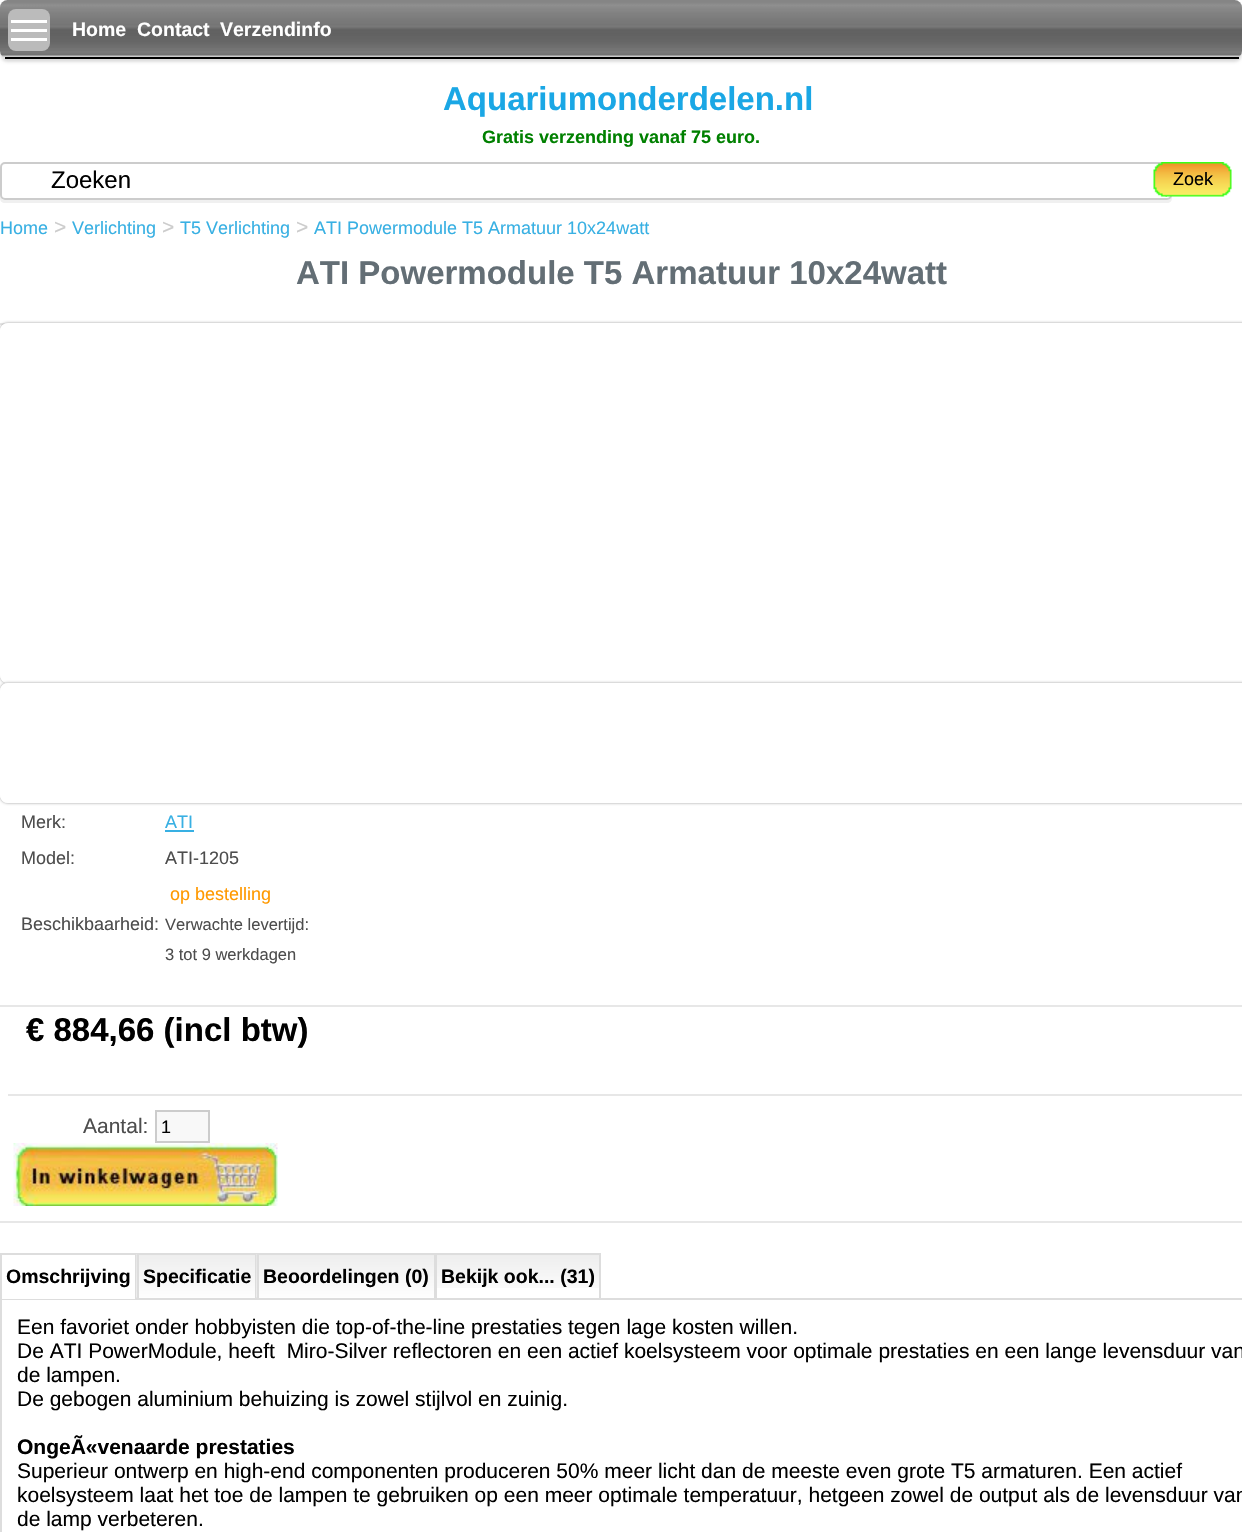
#include "include/core/SkBlurTypes.h"
#include "include/core/SkCanvas.h"
#include "include/core/SkData.h"
#include "include/core/SkFont.h"
#include "include/core/SkFontMgr.h"
#include "include/core/SkImage.h"
#include "include/core/SkMaskFilter.h"
#include "include/core/SkPaint.h"
#include "include/core/SkPathBuilder.h"
#include "include/core/SkTextBlob.h"
#include "include/effects/SkDashPathEffect.h"
#include "include/effects/SkGradientShader.h"
#include "include/utils/SkParsePath.h"

extern sk_sp<SkFontMgr> fontMgr;

void draw(SkCanvas* canvas) {
    SkPaint p;
    p.setAntiAlias(true);
    auto font = [&](const char* family, int weight, float size, bool italic = false) {
        SkFontStyle style(weight, SkFontStyle::kNormal_Width,
            italic ? SkFontStyle::kItalic_Slant : SkFontStyle::kUpright_Slant);
        SkFont result(fontMgr->matchFamilyStyle(family, style), size);
        result.setSubpixel(true);
        return result;
    };
    auto drawPhoto = [&](const char* path, float l, float t, float r, float b) {
        auto image = SkImages::DeferredFromEncodedData(SkData::MakeFromFileName(path));
        canvas->drawImageRect(image, SkRect::MakeLTRB(l, t, r, b), SkSamplingOptions());
    };
    canvas->clear(0xFFFFFFFF);
    p.setColor(0xFFDDDDDD);
    p.setMaskFilter(SkMaskFilter::MakeBlur(kNormal_SkBlurStyle, 1.5f));
    canvas->drawRoundRect(SkRect::MakeLTRB(0, 3, 1242, 62), 8, 8, p);
    p.setMaskFilter(nullptr);
    drawPhoto("media/1.png", 0, 0, 1242, 58);
    p.setColor(0xFF000000);
    canvas->drawRect(SkRect::MakeLTRB(5, 57, 1239, 59), p);
    p.setColor(0xFFBBBBBB);
    canvas->drawRoundRect(SkRect::MakeLTRB(8, 9, 50, 51), 8, 8, p);
    {
        const struct { float l, t, r, b; SkColor color; } items[] = {
            {11, 20, 47, 23, 0xFFFFFFFF},
            {11, 29, 47, 32, 0xFFFFFFFF},
            {11, 38, 47, 41, 0xFFFFFFFF},
        };
        for (auto [l, t, r, b, color] : items) {
            p.setColor(color);
            canvas->drawRect(SkRect::MakeLTRB(l, t, r, b), p);
        }
    }
    auto font1 = font("Liberation Sans", 700, 19.5f);
    {
        const struct { const char* s; float x, y; } items[] = {
            {"Home", 72, 36},
            {"Contact", 137, 36},
            {"Verzendinfo", 220, 36},
        };
        for (auto [s, x, y] : items) {
            canvas->drawString(s, x, y, font1, p);
        }
    }
    auto font2 = font("Liberation Sans", 700, 33);
    p.setColor(0xFF1AA7E5);
    canvas->drawString("Aquariumonderdelen.nl", 443, 110, font2, p);
    auto font3 = font("Liberation Sans", 700, 18);
    p.setColor(0xFF008000);
    canvas->drawString("Gratis verzending vanaf 75 euro.", 482, 143, font3, p);
    p.setColor(0xFFF0F0F0);
    canvas->drawPath(SkPathBuilder().moveTo(0, 195).lineTo(0, 198).cubicTo(0, 201, 2, 203, 5, 203).lineTo(1167, 203).cubicTo(1170, 203, 1172, 201, 1172, 198).lineTo(1172, 170).lineTo(1172, 168).lineTo(1172, 195).cubicTo(1172, 197, 1169, 200, 1167, 200).lineTo(4, 200).cubicTo(2, 200, 0, 197, 0, 195).close().detach(), p);
    p.setColor(0xFFFFFFFF);
    canvas->drawRoundRect(SkRect::MakeLTRB(1, 163, 1171, 199), 4, 4, p);
    p.setStyle(SkPaint::kStroke_Style);
    p.setStrokeWidth(2);
    p.setColor(0xFFCCCCCC);
    canvas->drawRoundRect(SkRect::MakeLTRB(1, 163, 1171, 199), 4, 4, p);
    auto font4 = font("Liberation Sans", 400, 24);
    p.setStyle(SkPaint::kFill_Style);
    p.setColor(0xFF000000);
    canvas->drawString("Zoeken", 51, 188, font4, p);
    drawPhoto("media/2.png", 1153, 162, 1167, 197);
    drawPhoto("media/3.png", 1165, 162, 1232, 197);
    auto font5 = font("Liberation Sans", 400, 18);
    canvas->drawString("Zoek", 1173, 185, font5, p);
    p.setColor(0xFF38B0E3);
    canvas->drawString("Home", 0, 234, font5, p);
    auto font6 = font("Liberation Sans", 400, 21);
    p.setColor(0xFFCCCCCC);
    canvas->drawString(">", 54, 234, font6, p);
    p.setColor(0xFF38B0E3);
    canvas->drawString("Verlichting", 72, 234, font5, p);
    p.setColor(0xFFCCCCCC);
    canvas->drawString(">", 162, 234, font6, p);
    p.setColor(0xFF38B0E3);
    canvas->drawString("T5 Verlichting", 180, 234, font5, p);
    p.setColor(0xFFCCCCCC);
    canvas->drawString(">", 296, 234, font6, p);
    p.setColor(0xFF38B0E3);
    canvas->drawString("ATI Powermodule T5 Armatuur 10x24watt", 314, 234, font5, p);
    p.setColor(0xFF636E75);
    canvas->drawString("ATI Powermodule T5 Armatuur 10x24watt", 296, 284, font2, p);
    p.setColor(0xFFE7E7E7);
    canvas->drawRect(SkRect::MakeLTRB(0, 323, 8, 325), p);
    canvas->save();
    canvas->clipPath(SkPathBuilder(SkPathFillType::kEvenOdd).moveTo(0, 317).lineTo(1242, 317).lineTo(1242, 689).lineTo(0, 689).close().moveTo(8, 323).lineTo(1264, 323).cubicTo(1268.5f, 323, 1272, 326.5f, 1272, 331).lineTo(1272, 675).cubicTo(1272, 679.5f, 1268.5f, 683, 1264, 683).lineTo(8, 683).cubicTo(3.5f, 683, 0, 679.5f, 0, 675).lineTo(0, 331).cubicTo(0, 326.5f, 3.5f, 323, 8, 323).close().detach(), true);
    p.setColor(0xFF999999);
    p.setMaskFilter(SkMaskFilter::MakeBlur(kNormal_SkBlurStyle, 1.5f));
    canvas->drawRoundRect(SkRect::MakeLTRB(0, 323, 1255, 683), 8, 8, p);
    p.setMaskFilter(nullptr);
    canvas->restore();
    p.setStyle(SkPaint::kStroke_Style);
    p.setStrokeWidth(15);
    p.setColor(0xFFFFFFFF);
    canvas->drawRoundRect(SkRect::MakeLTRB(7.5f, 330.5f, 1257.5f, 675.5f), 0.5f, 0.5f, p);
    p.setStyle(SkPaint::kFill_Style);
    p.setColor(0xFF999999);
    p.setMaskFilter(SkMaskFilter::MakeBlur(kNormal_SkBlurStyle, 1.5f));
    canvas->drawRoundRect(SkRect::MakeLTRB(0, 683, 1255, 803), 8, 8, p);
    p.setMaskFilter(nullptr);
    p.setColor(0xFFFFFFFF);
    canvas->drawPath(SkPathBuilder().moveTo(8, 683).lineTo(1242, 683).lineTo(1242, 803).lineTo(8, 803).cubicTo(3.5f, 803, 0, 799.5f, 0, 795).lineTo(0, 691).cubicTo(0, 686.5f, 3.5f, 683, 8, 683).close().detach(), p);
    p.setStyle(SkPaint::kStroke_Style);
    canvas->drawRoundRect(SkRect::MakeLTRB(7.5f, 690.5f, 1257.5f, 795.5f), 0.5f, 0.5f, p);
    p.setStyle(SkPaint::kFill_Style);
    p.setColor(0xFFE7E7E7);
    canvas->drawRect(SkRect::MakeLTRB(0, 1005, 1242, 1007), p);
    p.setColor(0xFF4D4D4D);
    canvas->drawString("Merk:", 21, 828, font5, p);
    p.setColor(0xFF38B0E3);
    canvas->drawString("ATI", 165, 828, font5, p);
    canvas->drawRect(SkRect::MakeLTRB(165, 830, 194, 832), p);
    p.setColor(0xFF4D4D4D);
    {
        const struct { const char* s; float x, y; } items[] = {
            {"Model:", 21, 864},
            {"ATI-1205", 165, 864},
            {"Beschikbaarheid:", 21, 930},
        };
        for (auto [s, x, y] : items) {
            canvas->drawString(s, x, y, font5, p);
        }
    }
    p.setColor(0xFFFF9900);
    canvas->drawString("op bestelling", 170, 900, font5, p);
    auto font7 = font("Liberation Sans", 400, 16.5f);
    p.setColor(0xFF4D4D4D);
    canvas->drawString("Verwachte levertijd:", 165, 930, font7, p);
    canvas->drawString("3 tot 9 werkdagen", 165, 960, font7, p);
    p.setColor(0xFFE7E7E7);
    canvas->drawRect(SkRect::MakeLTRB(0, 1221, 1242, 1223), p);
    canvas->drawRect(SkRect::MakeLTRB(8, 1094, 1242, 1096), p);
    p.setColor(0xFF000000);
    canvas->drawString("€ 884,66 (incl btw)", 26, 1041, font2, p);
    p.setColor(0xFF4D4D4D);
    canvas->drawString("Aantal:", 83, 1133, font6, p);
    p.setColor(0xFFF8F8F8);
    canvas->drawRect(SkRect::MakeLTRB(156, 1111, 209, 1142), p);
    p.setStyle(SkPaint::kStroke_Style);
    p.setStrokeWidth(2);
    p.setColor(0xFFCCCCCC);
    canvas->drawRect(SkRect::MakeLTRB(156, 1111, 209, 1142), p);
    p.setStyle(SkPaint::kFill_Style);
    p.setColor(0xFF000000);
    canvas->drawString("1", 161, 1133, font5, p);
    drawPhoto("media/4.png", 13, 1143, 278, 1206);
    {
        const struct { float l, t, r, b; SkColor color; } items[] = {
            {0, 1298, 1242, 1300, 0xFFDDDDDD},
            {2, 1298, 135, 1299, 0xFFFFFFFF},
            {0, 1253, 137, 1255, 0xFFDDDDDD},
            {135, 1253, 137, 1299, 0xFFDDDDDD},
            {0, 1253, 2, 1532, 0xFFDDDDDD},
        };
        for (auto [l, t, r, b, color] : items) {
            p.setColor(color);
            canvas->drawRect(SkRect::MakeLTRB(l, t, r, b), p);
        }
    }
    p.setColor(0xFF000000);
    canvas->drawString("Omschrijving", 6, 1283, font1, p);
    drawPhoto("media/5.png", 136, 1254, 255, 1298);
    {
        const struct { float l, t, r, b; SkColor color; } items[] = {
            {137, 1253, 257, 1255, 0xFFDDDDDD},
            {255, 1253, 257, 1298, 0xFFDDDDDD},
            {137, 1253, 139, 1298, 0xFFDDDDDD},
        };
        for (auto [l, t, r, b, color] : items) {
            p.setColor(color);
            canvas->drawRect(SkRect::MakeLTRB(l, t, r, b), p);
        }
    }
    p.setColor(0xFF000000);
    canvas->drawString("Specificatie", 143, 1283, font1, p);
    drawPhoto("media/6.png", 256, 1254, 434, 1298);
    {
        const struct { float l, t, r, b; SkColor color; } items[] = {
            {257, 1253, 600, 1255, 0xFFDDDDDD},
            {434, 1253, 437, 1298, 0xFFDDDDDD},
            {257, 1253, 259, 1298, 0xFFDDDDDD},
        };
        for (auto [l, t, r, b, color] : items) {
            p.setColor(color);
            canvas->drawRect(SkRect::MakeLTRB(l, t, r, b), p);
        }
    }
    p.setColor(0xFF000000);
    canvas->drawString("Beoordelingen (0)", 263, 1283, font1, p);
    drawPhoto("media/7.png", 437, 1255, 599, 1288);
    p.setColor(0xFFDDDDDD);
    canvas->drawRect(SkRect::MakeLTRB(599, 1253, 601, 1298), p);
    p.setColor(0xFF000000);
    canvas->drawString("Bekijk ook... (31)", 441, 1283, font1, p);
    {
        const struct { const char* s; float x, y; } items[] = {
            {"Een favoriet onder hobbyisten die top-of-the-line prestaties tegen lage kosten willen.", 17, 1334},
            {"De ATI PowerModule, heeft  Miro-Silver reflectoren en een actief koelsysteem voor optimale prestaties en een lange levensduur van", 17, 1358},
            {"de lampen.", 17, 1382},
            {"De gebogen aluminium behuizing is zowel stijlvol en zuinig.", 17, 1406},
        };
        for (auto [s, x, y] : items) {
            canvas->drawString(s, x, y, font6, p);
        }
    }
    auto font8 = font("Liberation Sans", 700, 21);
    canvas->drawString("OngeÃ«venaarde prestaties", 17, 1454, font8, p);
    {
        const struct { const char* s; float x, y; } items[] = {
            {"Superieur ontwerp en high-end componenten produceren 50% meer licht dan de meeste even grote T5 armaturen. Een actief", 17, 1478},
            {"koelsysteem laat het toe de lampen te gebruiken op een meer optimale temperatuur, hetgeen zowel de output als de levensduur van", 17, 1502},
            {"de lamp verbeteren.", 17, 1526},
        };
        for (auto [s, x, y] : items) {
            canvas->drawString(s, x, y, font6, p);
        }
    }
}
